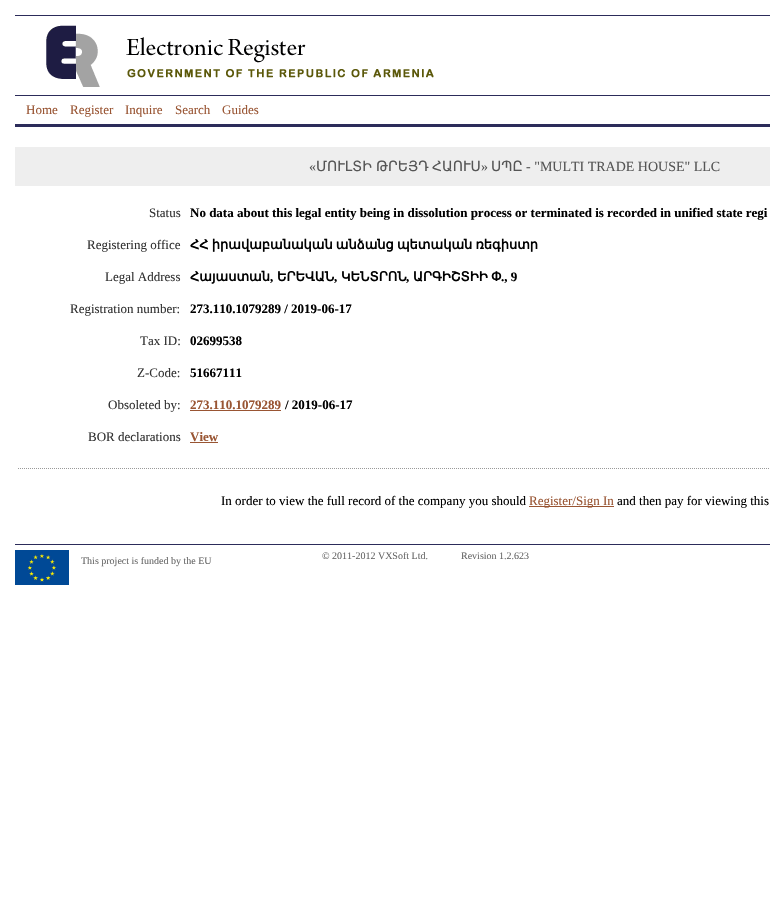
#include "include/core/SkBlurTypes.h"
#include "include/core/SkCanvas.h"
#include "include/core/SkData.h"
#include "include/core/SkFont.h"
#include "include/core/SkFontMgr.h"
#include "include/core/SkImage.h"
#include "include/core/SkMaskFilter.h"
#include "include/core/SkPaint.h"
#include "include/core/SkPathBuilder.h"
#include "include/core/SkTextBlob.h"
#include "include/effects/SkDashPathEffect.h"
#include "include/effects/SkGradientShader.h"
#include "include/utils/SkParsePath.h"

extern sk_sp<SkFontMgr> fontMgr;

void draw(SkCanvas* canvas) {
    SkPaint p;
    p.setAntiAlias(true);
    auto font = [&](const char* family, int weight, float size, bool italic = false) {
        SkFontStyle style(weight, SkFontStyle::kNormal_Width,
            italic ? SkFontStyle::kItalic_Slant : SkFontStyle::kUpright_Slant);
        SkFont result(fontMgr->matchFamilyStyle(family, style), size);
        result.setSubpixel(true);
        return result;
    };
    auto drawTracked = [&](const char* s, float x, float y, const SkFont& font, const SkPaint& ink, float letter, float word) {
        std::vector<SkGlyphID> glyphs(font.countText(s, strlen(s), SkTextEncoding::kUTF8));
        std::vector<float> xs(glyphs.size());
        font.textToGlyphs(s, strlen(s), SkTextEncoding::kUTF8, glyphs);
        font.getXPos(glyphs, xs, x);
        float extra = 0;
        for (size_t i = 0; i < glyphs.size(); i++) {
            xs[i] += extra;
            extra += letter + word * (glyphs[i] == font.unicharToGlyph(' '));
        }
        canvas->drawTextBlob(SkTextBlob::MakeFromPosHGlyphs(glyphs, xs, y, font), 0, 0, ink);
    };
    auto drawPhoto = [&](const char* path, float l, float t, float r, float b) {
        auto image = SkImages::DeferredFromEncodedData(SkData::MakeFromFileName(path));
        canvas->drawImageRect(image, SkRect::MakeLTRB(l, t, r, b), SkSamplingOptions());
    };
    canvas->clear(0xFFFFFFFF);
    p.setColor(0xFF2C2C5A);
    canvas->drawRect(SkRect::MakeLTRB(15, 15, 770, 16), p);
    canvas->drawRect(SkRect::MakeLTRB(15, 95, 770, 96), p);
    drawPhoto("media/1.png", 46, 25, 434, 87);
    canvas->drawRect(SkRect::MakeLTRB(15, 124, 770, 127), p);
    auto font1 = font("Liberation Serif", 400, 13);
    p.setColor(0xFF995533);
    {
        const struct { const char* s; float x, y; } items[] = {
            {"Home", 26, 114},
            {"Register", 70, 114},
            {"Inquire", 125, 114},
            {"Search", 175, 114},
            {"Guides", 222, 114},
        };
        for (auto [s, x, y] : items) {
            canvas->drawString(s, x, y, font1, p);
        }
    }
    p.setColor(0xFFEEEEEE);
    canvas->drawRect(SkRect::MakeLTRB(15, 147, 770, 186), p);
    auto font2 = font("Liberation Serif", 400, 14);
    p.setColor(0xFF555555);
    canvas->drawString("«", 309, 171, font2, p);
    auto font3 = font("DejaVu Sans", 400, 14);
    {
        const struct { const char* s; float x, y; } items[] = {
            {"ՄՈՒԼՏԻ", 316, 171},
            {"ԹՐԵՅԴ", 376, 171},
            {"ՀԱՈՒՍ", 432, 171},
        };
        for (auto [s, x, y] : items) {
            canvas->drawString(s, x, y, font3, p);
        }
    }
    canvas->drawString("»", 481, 171, font2, p);
    canvas->drawString("ՍՊԸ", 491, 171, font3, p);
    canvas->drawString("- \"MULTI TRADE HOUSE\" LLC", 526, 171, font2, p);
    p.setColor(0xFF333333);
    canvas->drawString("Status", 149, 217, font1, p);
    auto font4 = font("Liberation Serif", 700, 13);
    p.setColor(0xFF000000);
    canvas->drawString("No data about this legal entity being in dissolution process or terminated is recorded in unified state regi", 190, 217, font4, p);
    p.setColor(0xFF333333);
    canvas->drawString("Registering office", 87, 249, font1, p);
    auto font5 = font("DejaVu Sans", 700, 13);
    p.setColor(0xFF000000);
    drawTracked("ՀՀ իրավաբանական անձանց պետական ռեգիստր", 190, 249, font5, p, 0, -1);
    p.setColor(0xFF333333);
    canvas->drawString("Legal Address", 105, 281, font1, p);
    p.setColor(0xFF000000);
    canvas->drawString("Հայաստան", 190, 281, font5, p);
    canvas->drawString(",", 270, 281, font4, p);
    canvas->drawString("ԵՐԵՎԱՆ", 277, 281, font5, p);
    canvas->drawString(",", 334, 281, font4, p);
    canvas->drawString("ԿԵՆՏՐՈՆ", 341, 281, font5, p);
    canvas->drawString(",", 406, 281, font4, p);
    canvas->drawString("ԱՐԳԻՇՏԻԻ", 413, 281, font5, p);
    canvas->drawString("Փ", 491, 281, font5, p);
    canvas->drawString("., 9", 501, 281, font4, p);
    p.setColor(0xFF333333);
    canvas->drawString("Registration number:", 70, 313, font1, p);
    p.setColor(0xFF000000);
    canvas->drawString("273.110.1079289 / 2019-06-17", 190, 313, font4, p);
    p.setColor(0xFF333333);
    canvas->drawString("Tax ID:", 140, 345, font1, p);
    p.setColor(0xFF000000);
    canvas->drawString("02699538", 190, 345, font4, p);
    p.setColor(0xFF333333);
    canvas->drawString("Z-Code:", 137, 377, font1, p);
    p.setColor(0xFF000000);
    canvas->drawString("51667111", 190, 377, font4, p);
    p.setColor(0xFF333333);
    canvas->drawString("Obsoleted by:", 108, 409, font1, p);
    p.setColor(0xFF995533);
    canvas->drawString("273.110.1079289", 190, 409, font4, p);
    canvas->drawRect(SkRect::MakeLTRB(190, 410, 281, 411), p);
    p.setColor(0xFF000000);
    canvas->drawString("/ 2019-06-17", 285, 409, font4, p);
    p.setColor(0xFF333333);
    canvas->drawString("BOR declarations", 88, 441, font1, p);
    p.setColor(0xFF995533);
    canvas->drawString("View", 190, 441, font4, p);
    canvas->drawRect(SkRect::MakeLTRB(190, 442, 218, 443), p);
    p.setStyle(SkPaint::kStroke_Style);
    p.setStrokeWidth(1);
    p.setColor(0xFF999999);
    p.setPathEffect(SkDashPathEffect::Make({{1, 1}}, 0));
    canvas->drawPath(SkPathBuilder().moveTo(18, 468.5f).lineTo(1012, 468.5f).detach(), p);
    p.setPathEffect(nullptr);
    p.setStyle(SkPaint::kFill_Style);
    p.setColor(0xFF000000);
    canvas->drawString("In order to view the full record of the company you should", 221, 505, font1, p);
    p.setColor(0xFF995533);
    canvas->drawRect(SkRect::MakeLTRB(529, 506, 614, 507), p);
    canvas->drawString("Register/Sign In", 529, 505, font1, p);
    p.setColor(0xFF000000);
    canvas->drawString("and then pay for viewing this", 617, 505, font1, p);
    p.setColor(0xFF2C2C5A);
    canvas->drawRect(SkRect::MakeLTRB(15, 544, 770, 545), p);
    drawPhoto("media/2.png", 15, 550, 69, 585);
    auto font6 = font("Liberation Serif", 400, 10);
    p.setColor(0xFF666666);
    {
        const struct { const char* s; float x, y; } items[] = {
            {"This project is funded by the EU", 81, 564},
            {"© 2011-2012 VXSoft Ltd.", 322, 559},
            {"Revision 1.2.623", 461, 559},
        };
        for (auto [s, x, y] : items) {
            canvas->drawString(s, x, y, font6, p);
        }
    }
}
